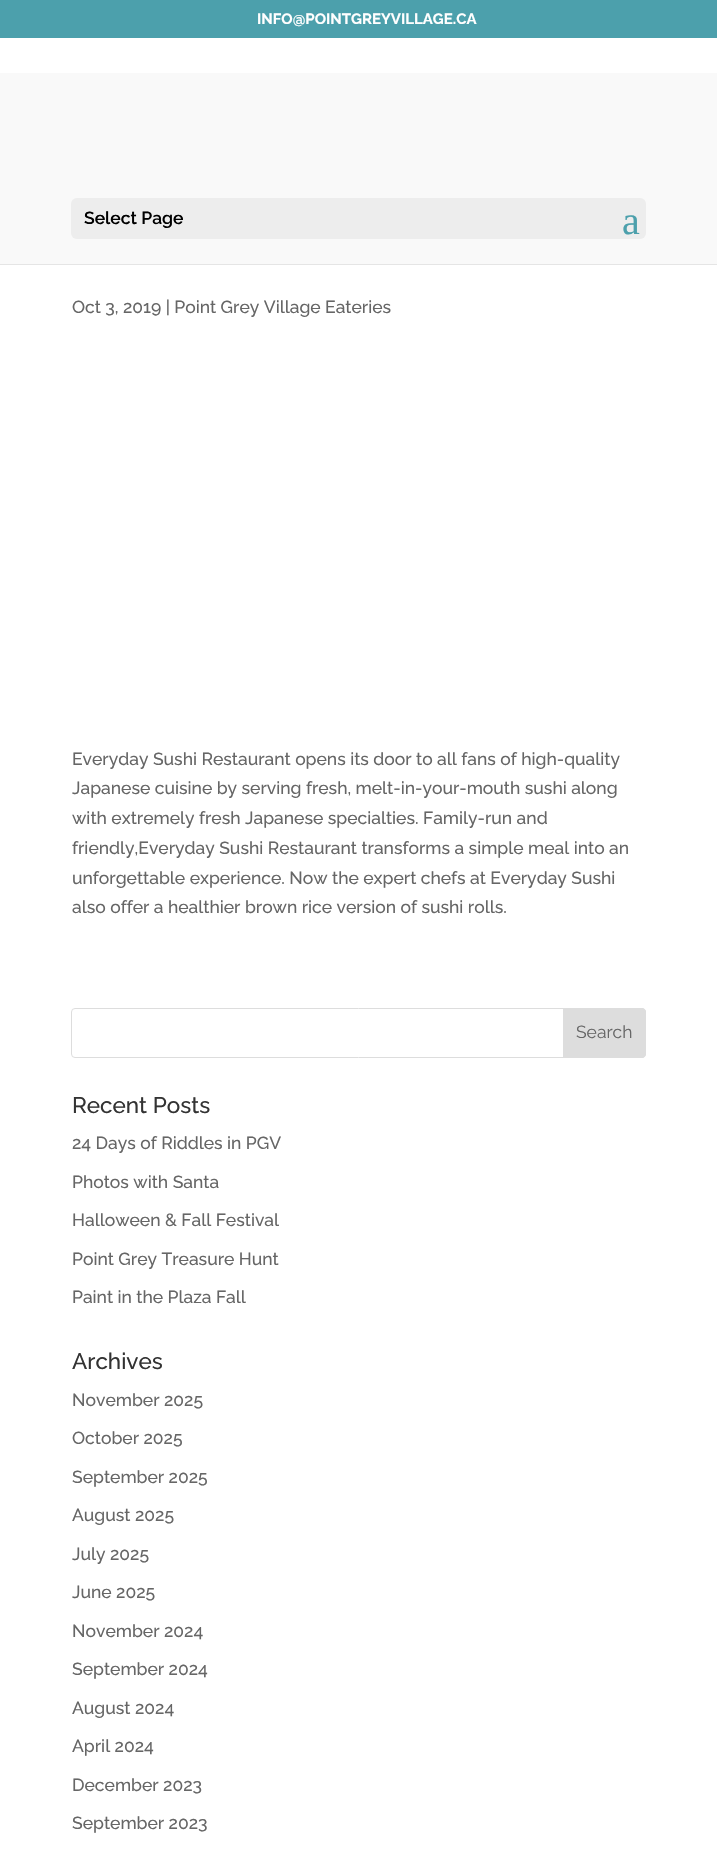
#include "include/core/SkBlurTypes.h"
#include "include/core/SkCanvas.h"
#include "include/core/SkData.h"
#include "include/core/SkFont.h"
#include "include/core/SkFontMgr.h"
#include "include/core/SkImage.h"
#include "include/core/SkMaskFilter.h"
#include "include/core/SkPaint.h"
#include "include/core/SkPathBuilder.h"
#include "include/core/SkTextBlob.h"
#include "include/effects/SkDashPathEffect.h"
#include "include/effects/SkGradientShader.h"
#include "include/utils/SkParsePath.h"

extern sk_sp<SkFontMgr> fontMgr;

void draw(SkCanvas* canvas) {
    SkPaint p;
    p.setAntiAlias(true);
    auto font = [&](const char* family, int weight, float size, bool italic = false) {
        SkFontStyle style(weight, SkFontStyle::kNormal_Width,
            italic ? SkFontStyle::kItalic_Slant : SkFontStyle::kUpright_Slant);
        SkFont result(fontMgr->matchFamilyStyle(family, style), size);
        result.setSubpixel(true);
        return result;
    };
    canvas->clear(0xFFFFFFFF);
    p.setColor(0xFF4CA0AC);
    canvas->drawRect(SkRect::MakeLTRB(0, 0, 717, 38), p);
    auto font1 = font("Raleway", 700, 15);
    p.setColor(0xFFFFFFFF);
    canvas->drawString("INFO@POINTGREYVILLAGE.CA", 257, 24, font1, p);
    p.setColor(0x1A000000);
    canvas->drawPath(SkPathBuilder().moveTo(0, 264).lineTo(0, 265).lineTo(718, 265).lineTo(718, 74).lineTo(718, 264).close().detach(), p);
    p.setColor(0xFFF9F9F9);
    canvas->drawRect(SkRect::MakeLTRB(0, 73, 717, 264), p);
    p.setColor(0xFFEDEDED);
    canvas->drawRoundRect(SkRect::MakeLTRB(71, 198, 646, 239), 6, 6, p);
    auto font2 = font("Raleway", 600, 17.5f);
    p.setColor(0xFF000000);
    canvas->drawString("Select Page", 84, 224, font2, p);
    auto font3 = font("Liberation Serif", 400, 40);
    p.setColor(0xFF4CA0AC);
    canvas->drawString("a", 622, 234, font3, p);
    auto font4 = font("Raleway", 500, 17.5f);
    p.setColor(0xFF666666);
    {
        const struct { const char* s; float x, y; } items[] = {
            {"Oct 3, 2019 | Point Grey Village Eateries", 72, 313},
            {"Everyday Sushi Restaurant opens its door to all fans of high-quality", 72, 765},
            {"Japanese cuisine by serving fresh, melt-in-your-mouth sushi along", 72, 794},
            {"with extremely fresh Japanese specialties. Family-run and", 72, 824},
            {"friendly,Everyday Sushi Restaurant transforms a simple meal into an", 72, 854},
            {"unforgettable experience. Now the expert chefs at Everyday Sushi", 72, 884},
            {"also offer a healthier brown rice version of sushi rolls.", 72, 913},
        };
        for (auto [s, x, y] : items) {
            canvas->drawString(s, x, y, font4, p);
        }
    }
    p.setStyle(SkPaint::kStroke_Style);
    p.setStrokeWidth(1);
    p.setColor(0xFFDDDDDD);
    canvas->drawRoundRect(SkRect::MakeLTRB(71.5f, 1008.5f, 645.5f, 1057.5f), 3.5f, 3.5f, p);
    p.setStyle(SkPaint::kFill_Style);
    canvas->drawPath(SkPathBuilder().moveTo(563.5f, 1008.5f).lineTo(642, 1008.5f).cubicTo(644, 1008.5f, 645.5f, 1010, 645.5f, 1012).lineTo(645.5f, 1054).cubicTo(645.5f, 1056, 644, 1057.5f, 642, 1057.5f).lineTo(563.5f, 1057.5f).close().detach(), p);
    p.setStyle(SkPaint::kStroke_Style);
    canvas->drawPath(SkPathBuilder().moveTo(563.5f, 1008.5f).lineTo(642, 1008.5f).cubicTo(644, 1008.5f, 645.5f, 1010, 645.5f, 1012).lineTo(645.5f, 1054).cubicTo(645.5f, 1056, 644, 1057.5f, 642, 1057.5f).lineTo(563.5f, 1057.5f).close().detach(), p);
    auto font5 = font("Raleway", 400, 17.5f);
    p.setStyle(SkPaint::kFill_Style);
    p.setColor(0xFF666666);
    canvas->drawString("Search", 576, 1038, font5, p);
    auto font6 = font("Raleway", 500, 22.5f);
    p.setColor(0xFF333333);
    canvas->drawString("Recent Posts", 72, 1113, font6, p);
    p.setColor(0xFF666666);
    {
        const struct { const char* s; float x, y; } items[] = {
            {"24 Days of Riddles in PGV", 72, 1149},
            {"Photos with Santa", 72, 1188},
            {"Halloween & Fall Festival", 72, 1226},
            {"Point Grey Treasure Hunt", 72, 1265},
            {"Paint in the Plaza Fall", 72, 1303},
        };
        for (auto [s, x, y] : items) {
            canvas->drawString(s, x, y, font4, p);
        }
    }
    p.setColor(0xFF333333);
    canvas->drawString("Archives", 72, 1369, font6, p);
    p.setColor(0xFF666666);
    {
        const struct { const char* s; float x, y; } items[] = {
            {"November 2025", 72, 1406},
            {"October 2025", 72, 1444},
            {"September 2025", 72, 1483},
            {"August 2025", 72, 1521},
            {"July 2025", 72, 1560},
            {"June 2025", 72, 1598},
            {"November 2024", 72, 1637},
            {"September 2024", 72, 1675},
            {"August 2024", 72, 1714},
            {"April 2024", 72, 1752},
            {"December 2023", 72, 1791},
            {"September 2023", 72, 1829},
        };
        for (auto [s, x, y] : items) {
            canvas->drawString(s, x, y, font4, p);
        }
    }
}
